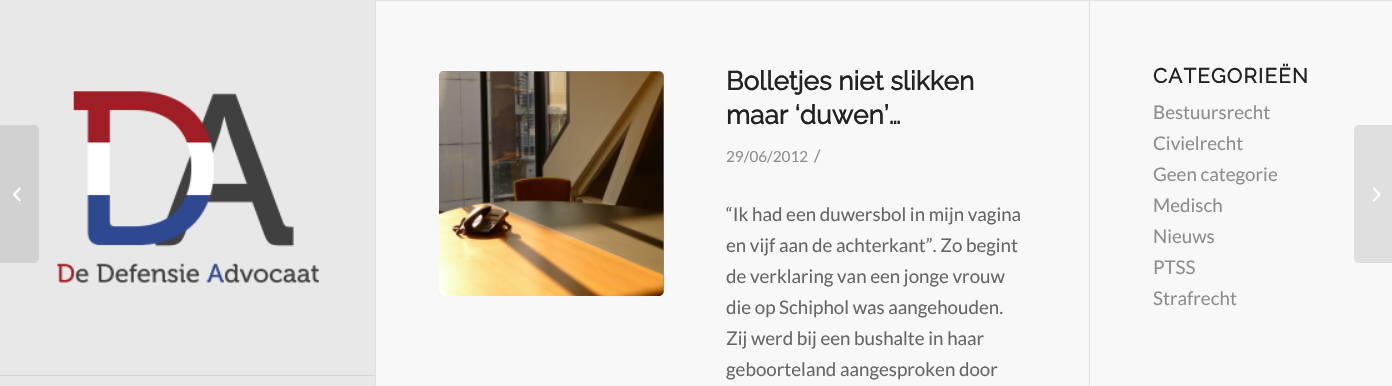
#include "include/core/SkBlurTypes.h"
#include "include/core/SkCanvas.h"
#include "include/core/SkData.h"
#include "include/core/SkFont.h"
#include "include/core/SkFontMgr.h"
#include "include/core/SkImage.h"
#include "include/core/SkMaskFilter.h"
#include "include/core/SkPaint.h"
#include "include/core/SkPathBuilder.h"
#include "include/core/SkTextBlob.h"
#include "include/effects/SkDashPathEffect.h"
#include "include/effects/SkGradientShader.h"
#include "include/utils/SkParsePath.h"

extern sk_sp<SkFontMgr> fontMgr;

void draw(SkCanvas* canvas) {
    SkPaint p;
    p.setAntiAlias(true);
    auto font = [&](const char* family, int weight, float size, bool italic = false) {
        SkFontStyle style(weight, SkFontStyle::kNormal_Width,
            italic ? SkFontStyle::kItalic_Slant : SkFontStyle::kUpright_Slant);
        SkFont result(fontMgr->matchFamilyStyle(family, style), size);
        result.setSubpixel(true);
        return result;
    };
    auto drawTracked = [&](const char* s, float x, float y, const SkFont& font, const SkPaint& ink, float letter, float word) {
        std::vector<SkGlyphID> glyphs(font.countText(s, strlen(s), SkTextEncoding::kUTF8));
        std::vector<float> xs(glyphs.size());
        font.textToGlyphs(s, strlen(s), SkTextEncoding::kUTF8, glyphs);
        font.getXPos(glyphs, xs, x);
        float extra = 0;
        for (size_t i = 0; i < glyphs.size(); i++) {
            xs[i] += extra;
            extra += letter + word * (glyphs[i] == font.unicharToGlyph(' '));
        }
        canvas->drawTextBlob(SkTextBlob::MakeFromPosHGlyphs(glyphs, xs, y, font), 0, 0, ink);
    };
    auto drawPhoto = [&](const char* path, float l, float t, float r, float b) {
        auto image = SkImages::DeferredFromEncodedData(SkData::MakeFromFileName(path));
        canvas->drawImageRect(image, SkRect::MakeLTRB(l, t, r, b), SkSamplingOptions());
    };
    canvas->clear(0xFFE8E8E8);
    p.setColor(0xFFD6D6D6);
    canvas->drawRect(SkRect::MakeLTRB(0, 375, 375, 376), p);
    drawPhoto("media/1.png", 57, 91, 319, 283);
    {
        const struct { float l, t, r, b; SkColor color; } items[] = {
            {375, 0, 376, 386, 0xFFE1E1E1},
            {376, 1, 1392, 386, 0xFFF8F8F8},
            {376, 0, 1392, 1, 0xFFE1E1E1},
            {1089, 1, 1090, 386, 0xFFE1E1E1},
        };
        for (auto [l, t, r, b, color] : items) {
            p.setColor(color);
            canvas->drawRect(SkRect::MakeLTRB(l, t, r, b), p);
        }
    }
    p.setColor(0xFF8D8D8D);
    canvas->drawRoundRect(SkRect::MakeLTRB(439, 71, 664, 296), 5, 5, p);
    drawPhoto("media/2.png", 439, 71, 664, 296);
    auto font1 = font("Raleway", 700, 26.25f);
    p.setColor(0xFF222222);
    canvas->drawString("Bolletjes niet slikken", 726, 90, font1, p);
    canvas->drawString("maar ‘duwen’…", 726, 124, font1, p);
    auto font2 = font("Lato", 400, 15.25f);
    p.setColor(0xFF8D8D8D);
    canvas->drawString("29/06/2012", 726, 162, font2, p);
    auto font3 = font("Lato", 400, 17);
    canvas->drawString("/", 814, 162, font3, p);
    auto font4 = font("Lato", 400, 18.75f);
    p.setColor(0xFF666666);
    {
        const struct { const char* s; float x, y; } items[] = {
            {"“Ik had een duwersbol in mijn vagina", 726, 221},
            {"en vijf aan de achterkant”. Zo begint", 726, 252},
            {"de verklaring van een jonge vrouw", 726, 283},
            {"die op Schiphol was aangehouden.", 726, 314},
            {"Zij werd bij een bushalte in haar", 726, 345},
            {"geboorteland aangesproken door", 726, 376},
        };
        for (auto [s, x, y] : items) {
            canvas->drawString(s, x, y, font4, p);
        }
    }
    auto font5 = font("Raleway", 700, 20.5f);
    p.setColor(0xFF222222);
    drawTracked("CATEGORIEËN", 1153, 83, font5, p, 1.25f, 0);
    p.setColor(0xFF8D8D8D);
    {
        const struct { const char* s; float x, y; } items[] = {
            {"Bestuursrecht", 1153, 119},
            {"Civielrecht", 1153, 150},
            {"Geen categorie", 1153, 181},
            {"Medisch", 1153, 212},
            {"Nieuws", 1153, 243},
            {"PTSS", 1153, 274},
            {"Strafrecht", 1153, 305},
        };
        for (auto [s, x, y] : items) {
            canvas->drawString(s, x, y, font4, p);
        }
    }
    p.setColor(0xFFD1D1D1);
    canvas->drawPath(SkPathBuilder().moveTo(0, 125).lineTo(34, 125).cubicTo(37, 125, 39, 127, 39, 130).lineTo(39, 258).cubicTo(39, 261, 37, 263, 34, 263).lineTo(0, 263).close().detach(), p);
    drawPhoto("media/3.png", 13, 187, 21, 202);
    p.setColor(0xFFDFDFDF);
    canvas->drawPath(SkPathBuilder().moveTo(1359, 125).lineTo(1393, 125).lineTo(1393, 263).lineTo(1359, 263).cubicTo(1356, 263, 1354, 261, 1354, 258).lineTo(1354, 130).cubicTo(1354, 127, 1356, 125, 1359, 125).close().detach(), p);
    drawPhoto("media/4.png", 1373, 187, 1381, 202);
}
